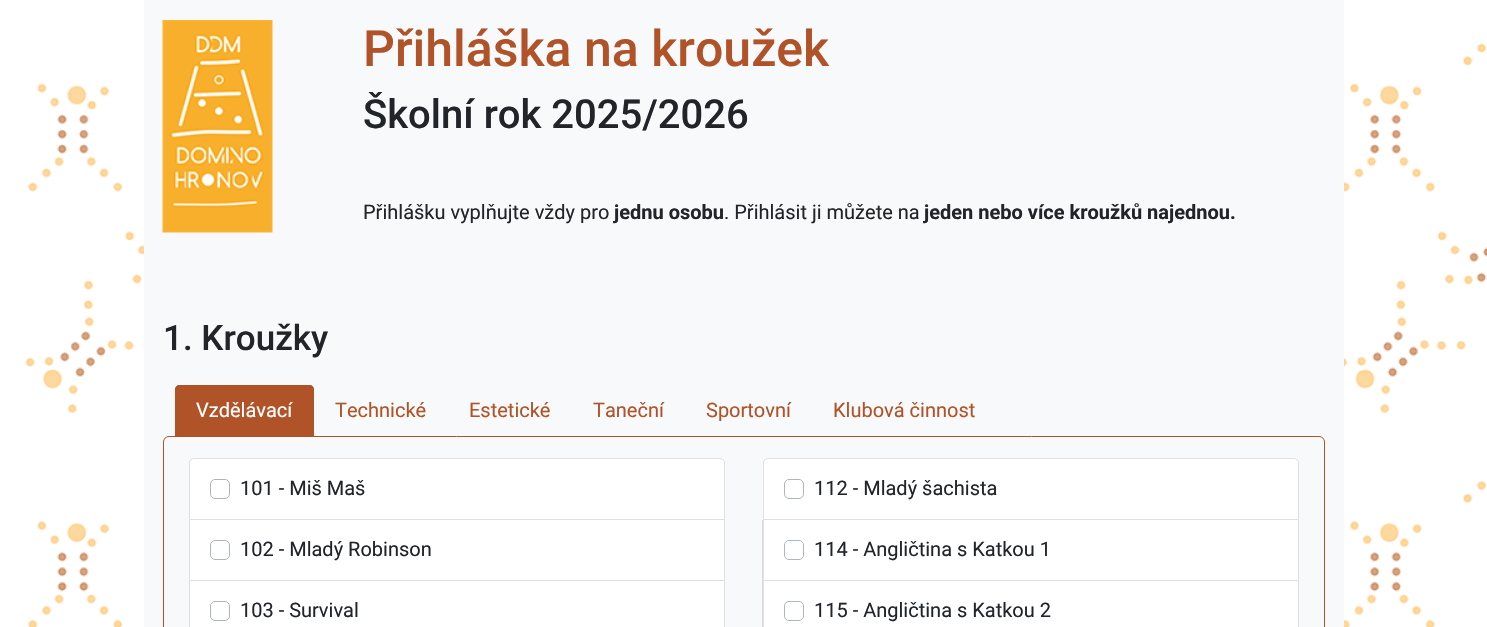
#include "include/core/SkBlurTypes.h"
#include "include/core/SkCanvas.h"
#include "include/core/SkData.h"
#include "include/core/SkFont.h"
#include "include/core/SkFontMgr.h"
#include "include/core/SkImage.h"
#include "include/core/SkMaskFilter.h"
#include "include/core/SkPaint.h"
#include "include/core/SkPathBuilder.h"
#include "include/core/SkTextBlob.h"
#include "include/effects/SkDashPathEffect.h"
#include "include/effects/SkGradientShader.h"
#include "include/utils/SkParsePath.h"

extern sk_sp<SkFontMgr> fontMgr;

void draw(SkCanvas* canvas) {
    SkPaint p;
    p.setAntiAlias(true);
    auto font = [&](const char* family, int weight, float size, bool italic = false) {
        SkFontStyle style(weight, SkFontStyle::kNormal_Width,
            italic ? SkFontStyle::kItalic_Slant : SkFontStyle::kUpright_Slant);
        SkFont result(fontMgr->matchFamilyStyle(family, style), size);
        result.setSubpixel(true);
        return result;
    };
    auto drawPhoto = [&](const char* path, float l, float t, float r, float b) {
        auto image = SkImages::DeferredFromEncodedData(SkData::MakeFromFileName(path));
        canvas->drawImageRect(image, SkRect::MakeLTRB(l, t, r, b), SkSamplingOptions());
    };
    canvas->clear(0xFFFFFFFF);
    drawPhoto("media/1.png", 25, 11, 1487, 627);
    p.setColor(0xFFF8F9FA);
    canvas->drawRect(SkRect::MakeLTRB(144, 0, 1344, 627), p);
    drawPhoto("media/2.png", 162, 20, 273, 233);
    auto font1 = font("Roboto", 500, 50);
    p.setColor(0xFFB05329);
    canvas->drawString("Přihláška na kroužek", 363, 66, font1, p);
    auto font2 = font("Roboto", 500, 40);
    p.setColor(0xFF212529);
    canvas->drawString("Školní rok 2025/2026", 363, 128, font2, p);
    auto font3 = font("Roboto", 400, 20);
    canvas->drawString("Přihlášku vyplňujte vždy pro", 363, 219, font3, p);
    auto font4 = font("Roboto", 700, 20);
    canvas->drawString("jednu osobu", 614, 219, font4, p);
    canvas->drawString(". Přihlásit ji můžete na", 724, 219, font3, p);
    canvas->drawString("jeden nebo více kroužků najednou.", 924, 219, font4, p);
    auto font5 = font("Roboto", 500, 35);
    canvas->drawString("1. Kroužky", 163, 350, font5, p);
    p.setColor(0xFFB05329);
    canvas->drawPath(SkPathBuilder().moveTo(180, 385).lineTo(309, 385).cubicTo(312, 385, 314, 387, 314, 390).lineTo(314, 436).lineTo(175, 436).lineTo(175, 390).cubicTo(175, 387, 177, 385, 180, 385).close().detach(), p);
    canvas->drawPath(SkPathBuilder(SkPathFillType::kEvenOdd).moveTo(180, 385).lineTo(309, 385).cubicTo(312, 385, 314, 387, 314, 390).lineTo(314, 436).lineTo(175, 436).lineTo(175, 390).cubicTo(175, 387, 177, 385, 180, 385).close().moveTo(180, 386).lineTo(309, 386).cubicTo(311, 386, 312, 388, 312, 390).lineTo(312, 436).lineTo(176, 436).lineTo(176, 390).cubicTo(176, 388, 178, 386, 180, 386).close().detach(), p);
    p.setColor(0xFFFFFFFF);
    canvas->drawString("Vzdělávací", 196, 417, font3, p);
    p.setColor(0xFFB05329);
    {
        const struct { const char* s; float x, y; } items[] = {
            {"Technické", 335, 417},
            {"Estetické", 469, 417},
            {"Taneční", 593, 417},
            {"Sportovní", 706, 417},
            {"Klubová činnost", 833, 417},
        };
        for (auto [s, x, y] : items) {
            canvas->drawString(s, x, y, font3, p);
        }
    }
    p.setStyle(SkPaint::kStroke_Style);
    p.setStrokeWidth(1);
    canvas->drawRoundRect(SkRect::MakeLTRB(163.5f, 436.5f, 1324.5f, 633.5f), 5.5f, 5.5f, p);
    p.setStyle(SkPaint::kFill_Style);
    p.setColor(0xFFFFFFFF);
    canvas->drawPath(SkPathBuilder().moveTo(194, 458).lineTo(720, 458).cubicTo(723, 458, 725, 460, 725, 463).lineTo(725, 520).lineTo(189, 520).lineTo(189, 463).cubicTo(189, 460, 191, 458, 194, 458).close().detach(), p);
    p.setStyle(SkPaint::kStroke_Style);
    p.setColor(0x1F000000);
    canvas->drawPath(SkPathBuilder().moveTo(194, 458.5f).lineTo(720, 458.5f).cubicTo(722.5f, 458.5f, 724.5f, 460.5f, 724.5f, 463).lineTo(724.5f, 519.5f).lineTo(189.5f, 519.5f).lineTo(189.5f, 463).cubicTo(189.5f, 460.5f, 191.5f, 458.5f, 194, 458.5f).close().detach(), p);
    p.setColor(0xFFADB5BD);
    canvas->drawRoundRect(SkRect::MakeLTRB(210.5f, 479.5f, 229.5f, 498.5f), 4.5f, 4.5f, p);
    p.setStyle(SkPaint::kFill_Style);
    p.setColor(0xFF212529);
    canvas->drawString("101 - Miš Maš", 240, 495, font3, p);
    p.setColor(0xFFFFFFFF);
    canvas->drawRect(SkRect::MakeLTRB(189, 520, 725, 581), p);
    p.setColor(0xFFDFDFDF);
    canvas->drawPath(SkPathBuilder().moveTo(725, 520).lineTo(725, 581).lineTo(724, 580).lineTo(724, 520).close().detach(), p);
    p.setColor(0x1F000000);
    canvas->drawPath(SkPathBuilder().moveTo(725, 581).lineTo(189, 581).lineTo(190, 580).lineTo(724, 580).close().detach(), p);
    canvas->drawPath(SkPathBuilder().moveTo(189, 581).lineTo(189, 520).lineTo(190, 520).lineTo(190, 580).close().detach(), p);
    p.setStyle(SkPaint::kStroke_Style);
    p.setColor(0xFFADB5BD);
    canvas->drawRoundRect(SkRect::MakeLTRB(210.5f, 540.5f, 229.5f, 559.5f), 4.5f, 4.5f, p);
    p.setStyle(SkPaint::kFill_Style);
    p.setColor(0xFF212529);
    canvas->drawString("102 - Mladý Robinson", 240, 556, font3, p);
    p.setColor(0xFFFFFFFF);
    canvas->drawRect(SkRect::MakeLTRB(190, 581, 724, 627), p);
    p.setColor(0xFFDFDFDF);
    canvas->drawPath(SkPathBuilder().moveTo(725, 581).lineTo(725, 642).lineTo(724, 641).lineTo(724, 581).close().detach(), p);
    canvas->drawPath(SkPathBuilder().moveTo(189, 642).lineTo(189, 581).lineTo(190, 581).lineTo(190, 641).close().detach(), p);
    p.setStyle(SkPaint::kStroke_Style);
    p.setColor(0xFFADB5BD);
    canvas->drawRoundRect(SkRect::MakeLTRB(210.5f, 601.5f, 229.5f, 620.5f), 4.5f, 4.5f, p);
    p.setStyle(SkPaint::kFill_Style);
    p.setColor(0xFF212529);
    canvas->drawString("103 - Survival", 240, 617, font3, p);
    p.setColor(0xFFFFFFFF);
    canvas->drawPath(SkPathBuilder().moveTo(768, 458).lineTo(1294, 458).cubicTo(1297, 458, 1299, 460, 1299, 463).lineTo(1299, 520).lineTo(763, 520).lineTo(763, 463).cubicTo(763, 460, 765, 458, 768, 458).close().detach(), p);
    p.setStyle(SkPaint::kStroke_Style);
    p.setColor(0x1F000000);
    canvas->drawPath(SkPathBuilder().moveTo(768, 458.5f).lineTo(1294, 458.5f).cubicTo(1296.5f, 458.5f, 1298.5f, 460.5f, 1298.5f, 463).lineTo(1298.5f, 519.5f).lineTo(763.5f, 519.5f).lineTo(763.5f, 463).cubicTo(763.5f, 460.5f, 765.5f, 458.5f, 768, 458.5f).close().detach(), p);
    p.setColor(0xFFADB5BD);
    canvas->drawRoundRect(SkRect::MakeLTRB(784.5f, 479.5f, 803.5f, 498.5f), 4.5f, 4.5f, p);
    p.setStyle(SkPaint::kFill_Style);
    p.setColor(0xFF212529);
    canvas->drawString("112 - Mladý šachista", 814, 495, font3, p);
    p.setColor(0xFFFFFFFF);
    canvas->drawRect(SkRect::MakeLTRB(763, 520, 1299, 581), p);
    p.setColor(0xFFDFDFDF);
    canvas->drawPath(SkPathBuilder().moveTo(1299, 520).lineTo(1299, 581).lineTo(1298, 580).lineTo(1298, 520).close().detach(), p);
    p.setColor(0x1F000000);
    canvas->drawPath(SkPathBuilder().moveTo(1299, 581).lineTo(762, 581).lineTo(764, 580).lineTo(1298, 580).close().detach(), p);
    canvas->drawPath(SkPathBuilder().moveTo(762, 581).lineTo(762, 520).lineTo(764, 520).lineTo(764, 580).close().detach(), p);
    p.setStyle(SkPaint::kStroke_Style);
    p.setColor(0xFFADB5BD);
    canvas->drawRoundRect(SkRect::MakeLTRB(784.5f, 540.5f, 803.5f, 559.5f), 4.5f, 4.5f, p);
    p.setStyle(SkPaint::kFill_Style);
    p.setColor(0xFF212529);
    canvas->drawString("114 - Angličtina s Katkou 1", 814, 556, font3, p);
    p.setColor(0xFFFFFFFF);
    canvas->drawRect(SkRect::MakeLTRB(763, 581, 1298, 627), p);
    p.setColor(0xFFDFDFDF);
    canvas->drawPath(SkPathBuilder().moveTo(1299, 581).lineTo(1299, 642).lineTo(1298, 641).lineTo(1298, 581).close().detach(), p);
    p.setColor(0x1F000000);
    canvas->drawPath(SkPathBuilder().moveTo(762, 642).lineTo(762, 581).lineTo(764, 581).lineTo(764, 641).close().detach(), p);
    p.setStyle(SkPaint::kStroke_Style);
    p.setColor(0xFFADB5BD);
    canvas->drawRoundRect(SkRect::MakeLTRB(784.5f, 601.5f, 803.5f, 620.5f), 4.5f, 4.5f, p);
    p.setStyle(SkPaint::kFill_Style);
    p.setColor(0xFF212529);
    canvas->drawString("115 - Angličtina s Katkou 2", 814, 617, font3, p);
}
